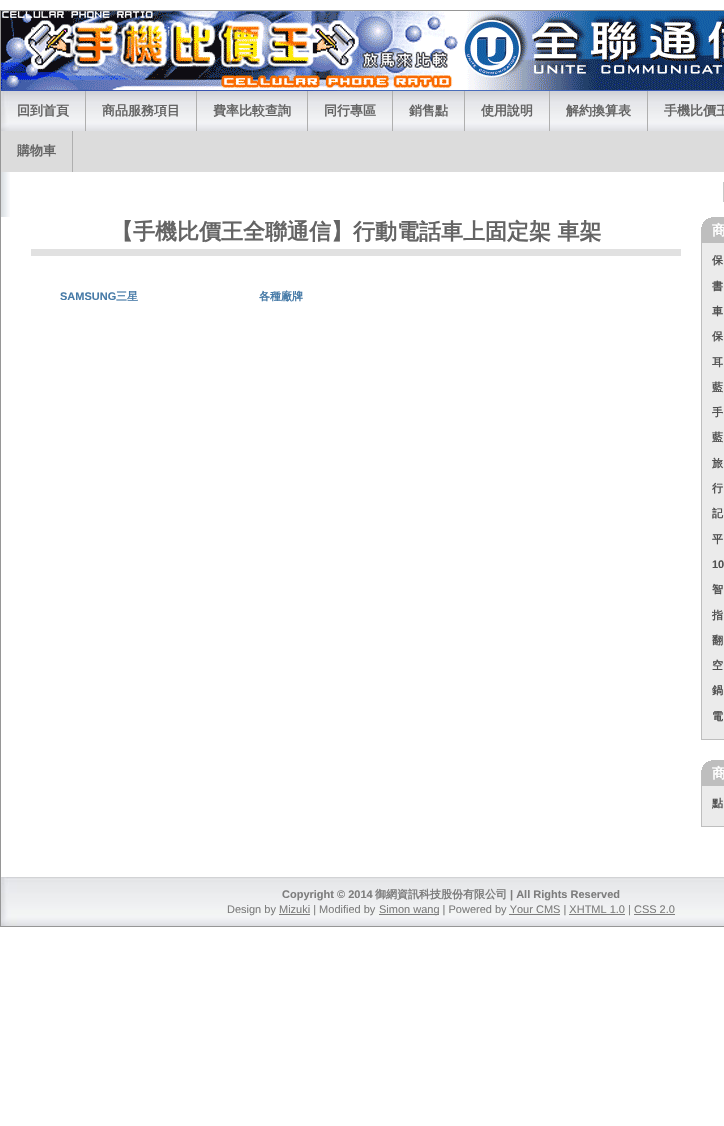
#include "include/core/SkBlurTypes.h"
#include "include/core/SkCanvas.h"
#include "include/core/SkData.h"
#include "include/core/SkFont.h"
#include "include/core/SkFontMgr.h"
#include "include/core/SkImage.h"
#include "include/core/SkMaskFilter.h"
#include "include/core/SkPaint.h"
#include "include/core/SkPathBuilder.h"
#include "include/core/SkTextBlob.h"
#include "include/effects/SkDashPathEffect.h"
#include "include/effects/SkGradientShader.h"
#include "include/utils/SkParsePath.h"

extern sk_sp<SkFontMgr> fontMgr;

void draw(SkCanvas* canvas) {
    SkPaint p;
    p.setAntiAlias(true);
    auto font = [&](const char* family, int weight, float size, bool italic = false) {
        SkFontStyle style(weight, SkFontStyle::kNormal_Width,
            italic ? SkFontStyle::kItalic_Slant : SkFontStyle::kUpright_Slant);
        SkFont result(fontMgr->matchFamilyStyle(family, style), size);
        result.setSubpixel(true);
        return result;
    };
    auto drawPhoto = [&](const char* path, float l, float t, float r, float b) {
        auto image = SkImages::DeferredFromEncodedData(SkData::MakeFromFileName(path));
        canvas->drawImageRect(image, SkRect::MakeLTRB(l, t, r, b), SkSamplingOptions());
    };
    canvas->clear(0xFFFFFFFF);
    p.setStyle(SkPaint::kStroke_Style);
    p.setStrokeWidth(1);
    p.setColor(0xFF969696);
    canvas->drawRect(SkRect::MakeLTRB(0.5f, 10.5f, 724.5f, 926.5f), p);
    drawPhoto("media/1.png", 1, 90, 724, 91);
    drawPhoto("media/2.png", 1, 11, 724, 90);
    p.setStyle(SkPaint::kFill_Style);
    p.setColor(0xFFDCDCDC);
    canvas->drawRect(SkRect::MakeLTRB(1, 131, 724, 172), p);
    drawPhoto("media/3.png", 1, 91, 724, 131);
    p.setColor(0xFFAFAFAF);
    canvas->drawRect(SkRect::MakeLTRB(85, 91, 86, 131), p);
    auto font1 = font("WenQuanYi Zen Hei", 700, 13);
    p.setColor(0xFF646464);
    canvas->drawString("回到首頁", 17, 115, font1, p);
    p.setColor(0xFFAFAFAF);
    canvas->drawRect(SkRect::MakeLTRB(196, 91, 197, 131), p);
    p.setColor(0xFF646464);
    canvas->drawString("商品服務項目", 102, 115, font1, p);
    p.setColor(0xFFAFAFAF);
    canvas->drawRect(SkRect::MakeLTRB(307, 91, 308, 131), p);
    p.setColor(0xFF646464);
    canvas->drawString("費率比較查詢", 213, 115, font1, p);
    p.setColor(0xFFAFAFAF);
    canvas->drawRect(SkRect::MakeLTRB(392, 91, 393, 131), p);
    p.setColor(0xFF646464);
    canvas->drawString("同行專區", 324, 115, font1, p);
    p.setColor(0xFFAFAFAF);
    canvas->drawRect(SkRect::MakeLTRB(464, 91, 465, 131), p);
    p.setColor(0xFF646464);
    canvas->drawString("銷售點", 409, 115, font1, p);
    p.setColor(0xFFAFAFAF);
    canvas->drawRect(SkRect::MakeLTRB(549, 91, 550, 131), p);
    p.setColor(0xFF646464);
    canvas->drawString("使用說明", 481, 115, font1, p);
    p.setColor(0xFFAFAFAF);
    canvas->drawRect(SkRect::MakeLTRB(647, 91, 648, 131), p);
    p.setColor(0xFF646464);
    canvas->drawString("解約換算表", 566, 115, font1, p);
    canvas->drawString("手機比價王", 664, 115, font1, p);
    p.setColor(0xFFAFAFAF);
    canvas->drawRect(SkRect::MakeLTRB(72, 131, 73, 172), p);
    p.setColor(0xFF646464);
    canvas->drawString("購物車", 17, 155, font1, p);
    drawPhoto("media/4.png", 1, 172, 10, 217);
    p.setStyle(SkPaint::kStroke_Style);
    p.setColor(0xFFC8C8C8);
    canvas->drawRect(SkRect::MakeLTRB(723.5f, 182.5f, 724.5f, 201.5f), p);
    p.setStyle(SkPaint::kFill_Style);
    p.setColor(0xFFE1E1E1);
    canvas->drawRect(SkRect::MakeLTRB(31, 249, 681, 256), p);
    auto font2 = font("WenQuanYi Zen Hei", 700, 22);
    p.setColor(0xFF646464);
    canvas->drawString("【手機比價王全聯通信】行動電話車上固定架 車架", 111, 239, font2, p);
    auto font3 = font("Liberation Sans", 700, 11);
    p.setColor(0xFF467AA7);
    canvas->drawString("SAMSUNG", 60, 300, font3, p);
    auto font4 = font("WenQuanYi Zen Hei", 700, 11);
    canvas->drawString("三星", 116, 300, font4, p);
    canvas->drawString("各種廠牌", 259, 300, font4, p);
    p.setColor(0xFFEBEBEB);
    canvas->drawRect(SkRect::MakeLTRB(702, 243, 724, 739), p);
    p.setStyle(SkPaint::kStroke_Style);
    p.setColor(0xFFBEBEBE);
    canvas->drawRect(SkRect::MakeLTRB(701.5f, 217.5f, 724.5f, 739.5f), p);
    p.setStyle(SkPaint::kFill_Style);
    canvas->drawRect(SkRect::MakeLTRB(702, 218, 724, 243), p);
    drawPhoto("media/5.png", 701, 217, 711, 227);
    auto font5 = font("WenQuanYi Zen Hei", 700, 14);
    p.setColor(0xFFFFFFFF);
    canvas->drawString("商", 712, 235, font5, p);
    p.setColor(0xFF505050);
    {
        const struct { const char* s; float x, y; } items[] = {
            {"保", 712, 264},
            {"書", 712, 290},
            {"車", 712, 315},
            {"保", 712, 340},
            {"耳", 712, 366},
            {"藍", 712, 391},
            {"手", 712, 416},
            {"藍", 712, 441},
            {"旅", 712, 467},
            {"行", 712, 492},
            {"記", 712, 517},
            {"平", 712, 543},
        };
        for (auto [s, x, y] : items) {
            canvas->drawString(s, x, y, font4, p);
        }
    }
    canvas->drawString("10", 712, 568, font3, p);
    {
        const struct { const char* s; float x, y; } items[] = {
            {"智", 712, 593},
            {"指", 712, 619},
            {"翻", 712, 644},
            {"空", 712, 669},
            {"鍋", 712, 694},
            {"電", 712, 720},
        };
        for (auto [s, x, y] : items) {
            canvas->drawString(s, x, y, font4, p);
        }
    }
    p.setColor(0xFFEBEBEB);
    canvas->drawRect(SkRect::MakeLTRB(702, 786, 724, 826), p);
    p.setStyle(SkPaint::kStroke_Style);
    p.setColor(0xFFBEBEBE);
    canvas->drawRect(SkRect::MakeLTRB(701.5f, 760.5f, 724.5f, 826.5f), p);
    p.setStyle(SkPaint::kFill_Style);
    canvas->drawRect(SkRect::MakeLTRB(702, 761, 724, 786), p);
    drawPhoto("media/5.png", 701, 760, 711, 770);
    p.setColor(0xFFFFFFFF);
    canvas->drawString("商", 712, 778, font5, p);
    p.setColor(0xFF505050);
    canvas->drawString("點", 712, 807, font4, p);
    drawPhoto("media/6.png", 1, 877, 724, 926);
    p.setColor(0xFF7D7D7D);
    canvas->drawString("Copyright © 2014", 282, 898, font3, p);
    canvas->drawString("御網資訊科技股份有限公司", 375, 898, font4, p);
    canvas->drawString("| All Rights Reserved", 510, 898, font3, p);
    auto font6 = font("Liberation Sans", 400, 11);
    canvas->drawString("Design by Mizuki | Modified by", 227, 913, font6, p);
    canvas->drawRect(SkRect::MakeLTRB(379, 914, 439, 915), p);
    canvas->drawString("Simon wang | Powered by Your CMS | XHTML 1.0 | CSS 2.0", 379, 913, font6, p);
    {
        const struct { float l, t, r, b; SkColor color; } items[] = {
            {279, 914, 310, 915, 0xFF7D7D7D},
            {509, 914, 560, 915, 0xFF7D7D7D},
            {569, 914, 625, 915, 0xFF7D7D7D},
            {634, 914, 675, 915, 0xFF7D7D7D},
        };
        for (auto [l, t, r, b, color] : items) {
            p.setColor(color);
            canvas->drawRect(SkRect::MakeLTRB(l, t, r, b), p);
        }
    }
}
